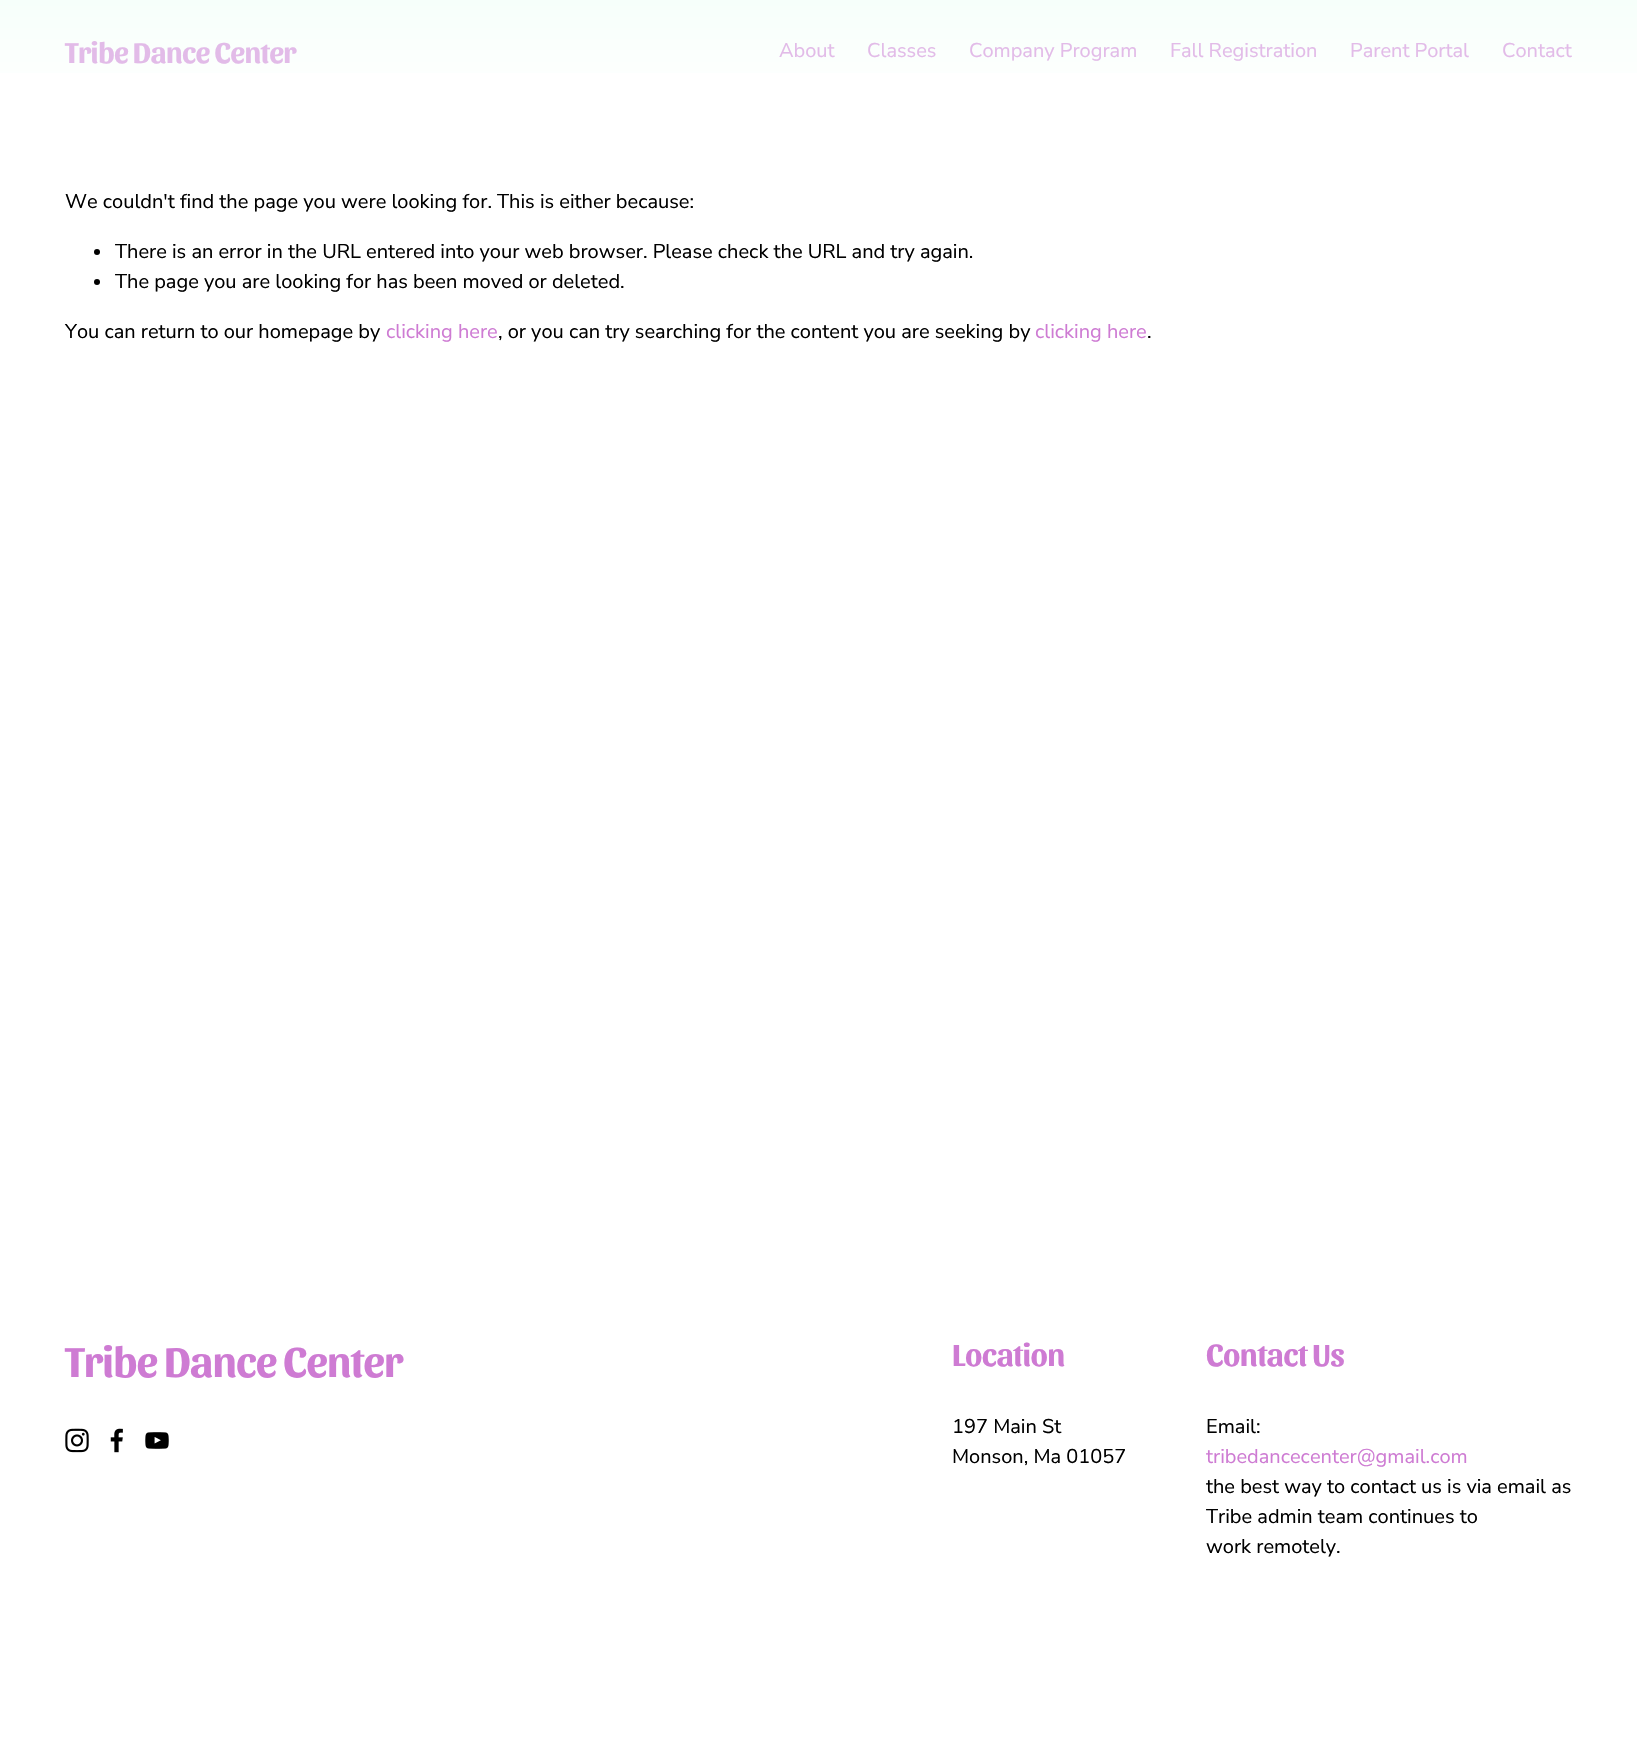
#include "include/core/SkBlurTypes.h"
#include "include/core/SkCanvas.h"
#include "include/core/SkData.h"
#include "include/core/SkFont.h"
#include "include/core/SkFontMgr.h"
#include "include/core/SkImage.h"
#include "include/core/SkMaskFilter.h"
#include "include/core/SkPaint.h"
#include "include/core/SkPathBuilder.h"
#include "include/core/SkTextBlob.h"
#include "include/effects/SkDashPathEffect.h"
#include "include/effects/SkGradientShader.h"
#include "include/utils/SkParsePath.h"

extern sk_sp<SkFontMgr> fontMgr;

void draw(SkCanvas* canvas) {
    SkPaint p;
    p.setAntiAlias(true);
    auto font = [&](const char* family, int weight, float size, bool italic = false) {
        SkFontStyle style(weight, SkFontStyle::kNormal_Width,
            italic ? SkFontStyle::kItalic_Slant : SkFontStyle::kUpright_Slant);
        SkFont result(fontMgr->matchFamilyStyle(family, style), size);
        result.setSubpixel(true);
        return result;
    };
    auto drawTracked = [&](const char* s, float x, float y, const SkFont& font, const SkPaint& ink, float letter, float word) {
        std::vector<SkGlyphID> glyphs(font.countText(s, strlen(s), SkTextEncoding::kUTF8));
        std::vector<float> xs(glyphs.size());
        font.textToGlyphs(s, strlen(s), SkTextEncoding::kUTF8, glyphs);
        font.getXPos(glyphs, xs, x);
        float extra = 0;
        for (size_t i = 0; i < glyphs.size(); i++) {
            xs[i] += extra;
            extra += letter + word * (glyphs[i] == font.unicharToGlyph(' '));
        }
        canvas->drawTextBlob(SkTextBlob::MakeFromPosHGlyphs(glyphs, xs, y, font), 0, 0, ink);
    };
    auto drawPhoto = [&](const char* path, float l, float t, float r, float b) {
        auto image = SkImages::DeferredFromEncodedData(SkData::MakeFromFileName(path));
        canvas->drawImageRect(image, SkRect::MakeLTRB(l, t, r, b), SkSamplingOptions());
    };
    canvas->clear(0xFFFFFFFF);
    {
        const SkColor colors[] = {0xFFF6FFFA, 0xFFFFFFFF};
        const float stops[] = {0, 1};
        const SkPoint ends[] = {{819, 0}, {819, 101}};
        p.setShader(SkGradientShader::MakeLinear(ends, colors, stops, 2, SkTileMode::kClamp));
        p.setAlpha(255);
    }
    canvas->drawRect(SkRect::MakeLTRB(0, 0, 1637, 73), p);
    auto font1 = font("Sansita", 700, 29.75f);
    p.setShader(nullptr);
    p.setColor(0xFFE2BBE8);
    drawTracked("Tribe Dance Center", 65, 63, font1, p, -0.6f, 0);
    auto font2 = font("Nunito Sans", 400, 20);
    {
        const struct { const char* s; float x, y; } items[] = {
            {"About", 779, 57},
            {"Classes", 867, 57},
            {"Company Program", 969, 57},
            {"Fall Registration", 1170, 57},
            {"Parent Portal", 1350, 57},
            {"Contact", 1502, 57},
        };
        for (auto [s, x, y] : items) {
            canvas->drawString(s, x, y, font2, p);
        }
    }
    p.setColor(0xFF000000);
    canvas->drawString("We couldn't find the page you were looking for. This is either because:", 65, 208, font2, p);
    canvas->drawCircle(97, 252, 3, p);
    canvas->drawString("There is an error in the URL entered into your web browser. Please check the URL and try again.", 115, 258, font2, p);
    canvas->drawCircle(97, 282, 3, p);
    canvas->drawString("The page you are looking for has been moved or deleted.", 115, 288, font2, p);
    canvas->drawString("You can return to our homepage by", 65, 338, font2, p);
    p.setColor(0xFFCE7BD3);
    canvas->drawString("clicking here", 386, 338, font2, p);
    p.setColor(0xFF000000);
    canvas->drawString(", or you can try searching for the content you are seeking by", 498, 338, font2, p);
    p.setColor(0xFFCE7BD3);
    canvas->drawString("clicking here", 1035, 338, font2, p);
    p.setColor(0xFF000000);
    canvas->drawString(".", 1147, 338, font2, p);
    auto font3 = font("Sansita", 700, 43.5f);
    p.setColor(0xFFCE7BD3);
    drawTracked("Tribe Dance Center", 65, 1377, font3, p, -0.9f, 0);
    auto font4 = font("Sansita", 700, 32);
    drawTracked("Location", 952, 1366, font4, p, -0.6f, 0);
    p.setColor(0xFF000000);
    canvas->drawString("197 Main St", 952, 1433, font2, p);
    canvas->drawString("Monson, Ma 01057", 952, 1463, font2, p);
    p.setColor(0xFFCE7BD3);
    drawTracked("Contact Us", 1206, 1366, font4, p, -0.6f, 0);
    p.setColor(0xFF000000);
    canvas->drawString("Email:", 1206, 1433, font2, p);
    p.setColor(0xFFCE7BD3);
    canvas->drawString("tribedancecenter@gmail.com", 1206, 1463, font2, p);
    p.setColor(0xFF000000);
    {
        const struct { const char* s; float x, y; } items[] = {
            {"the best way to contact us is via email as", 1206, 1493},
            {"Tribe admin team continues to", 1206, 1523},
            {"work remotely.", 1206, 1553},
        };
        for (auto [s, x, y] : items) {
            canvas->drawString(s, x, y, font2, p);
        }
    }
    drawPhoto("media/1.png", 65, 1428, 89, 1453);
    drawPhoto("media/2.png", 110, 1428, 123, 1453);
    drawPhoto("media/3.png", 145, 1432, 169, 1449);
}
